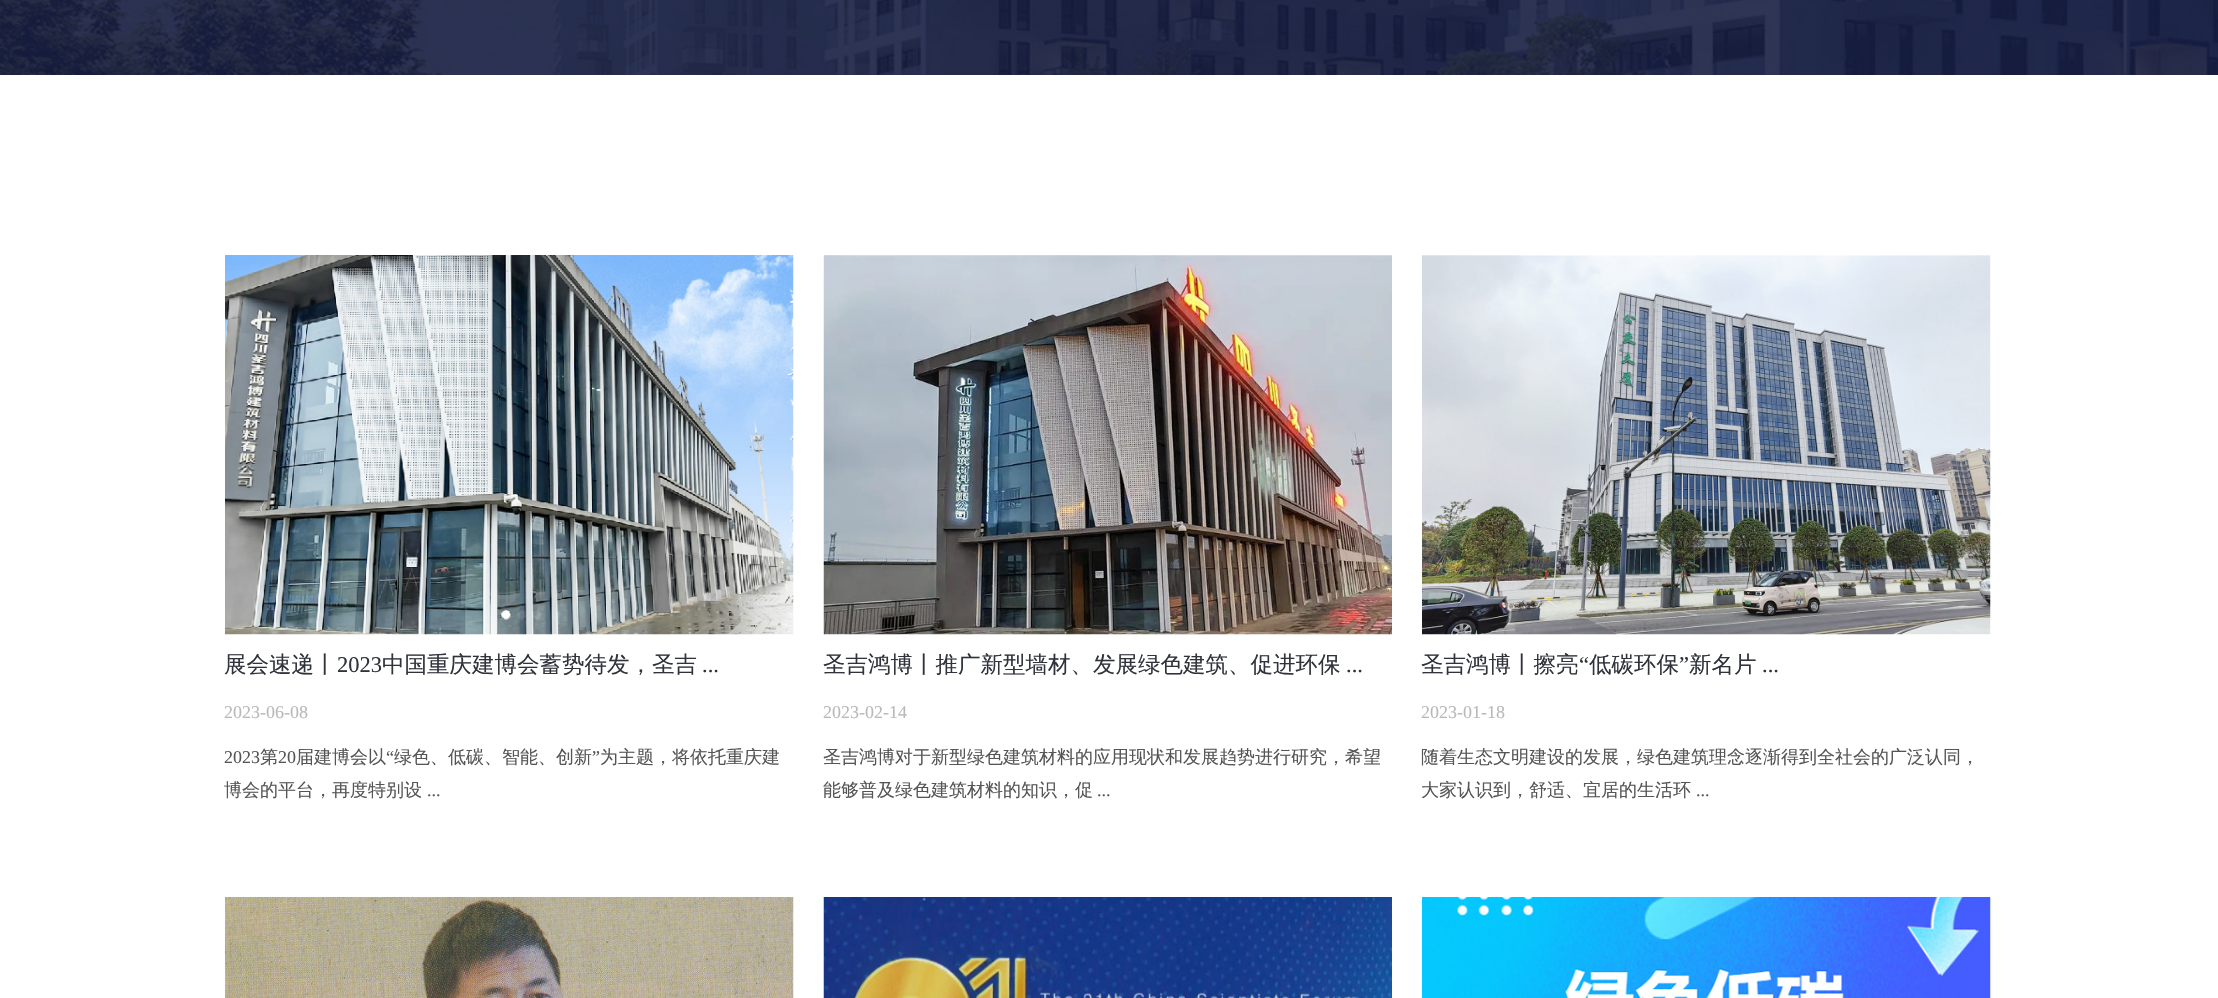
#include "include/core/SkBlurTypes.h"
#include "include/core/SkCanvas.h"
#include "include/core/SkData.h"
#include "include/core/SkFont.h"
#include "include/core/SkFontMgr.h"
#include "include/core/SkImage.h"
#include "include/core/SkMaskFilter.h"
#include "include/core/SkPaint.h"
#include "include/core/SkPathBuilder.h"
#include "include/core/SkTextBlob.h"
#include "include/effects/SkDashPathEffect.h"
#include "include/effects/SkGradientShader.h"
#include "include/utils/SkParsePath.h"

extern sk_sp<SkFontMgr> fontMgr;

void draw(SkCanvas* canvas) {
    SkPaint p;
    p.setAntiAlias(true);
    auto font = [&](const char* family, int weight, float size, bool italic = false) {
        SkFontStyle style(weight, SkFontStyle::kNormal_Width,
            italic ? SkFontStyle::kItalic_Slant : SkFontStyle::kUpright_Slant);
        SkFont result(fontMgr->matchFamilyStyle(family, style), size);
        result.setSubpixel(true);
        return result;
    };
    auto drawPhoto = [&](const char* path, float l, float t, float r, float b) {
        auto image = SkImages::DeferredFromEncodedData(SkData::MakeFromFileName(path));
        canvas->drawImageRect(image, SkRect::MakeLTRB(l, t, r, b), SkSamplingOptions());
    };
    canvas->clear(0xFFFFFFFF);
    drawPhoto("media/1.png", 0, 0, 2218, 75);
    drawPhoto("media/2.png", 225, 255, 794, 635);
    auto font1 = font("WenQuanYi Zen Hei", 500, 22.5f);
    p.setColor(0xFF30333B);
    canvas->drawString("展会速递丨", 224, 672, font1, p);
    auto font2 = font("Liberation Serif", 400, 22.5f);
    canvas->drawString("2023", 337, 672, font2, p);
    canvas->drawString("中国重庆建博会蓄势待发，圣吉", 382, 672, font1, p);
    canvas->drawString("...", 702, 672, font2, p);
    auto font3 = font("Liberation Serif", 400, 18);
    p.setColor(0xFFB9B9B9);
    canvas->drawString("2023-06-08", 224, 718, font3, p);
    p.setColor(0xFF555555);
    canvas->drawString("2023", 224, 763, font3, p);
    auto font4 = font("WenQuanYi Zen Hei", 500, 18);
    canvas->drawString("第", 260, 763, font4, p);
    canvas->drawString("20", 278, 763, font3, p);
    canvas->drawString("届建博会以", 296, 763, font4, p);
    canvas->drawString("“", 386, 763, font3, p);
    canvas->drawString("绿色、低碳、智能、创新", 394, 763, font4, p);
    canvas->drawString("”", 592, 763, font3, p);
    canvas->drawString("为主题，将依托重庆建", 600, 763, font4, p);
    canvas->drawString("博会的平台，再度特别设", 224, 796, font4, p);
    canvas->drawString("...", 427, 796, font3, p);
    drawPhoto("media/3.png", 823, 255, 1392, 635);
    p.setColor(0xFF30333B);
    canvas->drawString("圣吉鸿博丨推广新型墙材、发展绿色建筑、促进环保", 823, 672, font1, p);
    canvas->drawString("...", 1346, 672, font2, p);
    p.setColor(0xFFB9B9B9);
    canvas->drawString("2023-02-14", 823, 718, font3, p);
    p.setColor(0xFF555555);
    canvas->drawString("圣吉鸿博对于新型绿色建筑材料的应用现状和发展趋势进行研究，希望", 823, 763, font4, p);
    canvas->drawString("能够普及绿色建筑材料的知识，促", 823, 796, font4, p);
    canvas->drawString("...", 1097, 796, font3, p);
    drawPhoto("media/4.png", 1422, 255, 1991, 635);
    p.setColor(0xFF30333B);
    canvas->drawString("圣吉鸿博丨擦亮", 1421, 672, font1, p);
    canvas->drawString("“", 1579, 672, font2, p);
    canvas->drawString("低碳环保", 1589, 672, font1, p);
    canvas->drawString("”", 1679, 672, font2, p);
    canvas->drawString("新名片", 1689, 672, font1, p);
    canvas->drawString("...", 1762, 672, font2, p);
    p.setColor(0xFFB9B9B9);
    canvas->drawString("2023-01-18", 1421, 718, font3, p);
    p.setColor(0xFF555555);
    canvas->drawString("随着生态文明建设的发展，绿色建筑理念逐渐得到全社会的广泛认同，", 1421, 763, font4, p);
    canvas->drawString("大家认识到，舒适、宜居的生活环", 1421, 796, font4, p);
    canvas->drawString("...", 1696, 796, font3, p);
    drawPhoto("media/5.png", 225, 897, 794, 998);
    drawPhoto("media/6.png", 823, 897, 1392, 998);
    drawPhoto("media/7.png", 1422, 897, 1991, 998);
}
